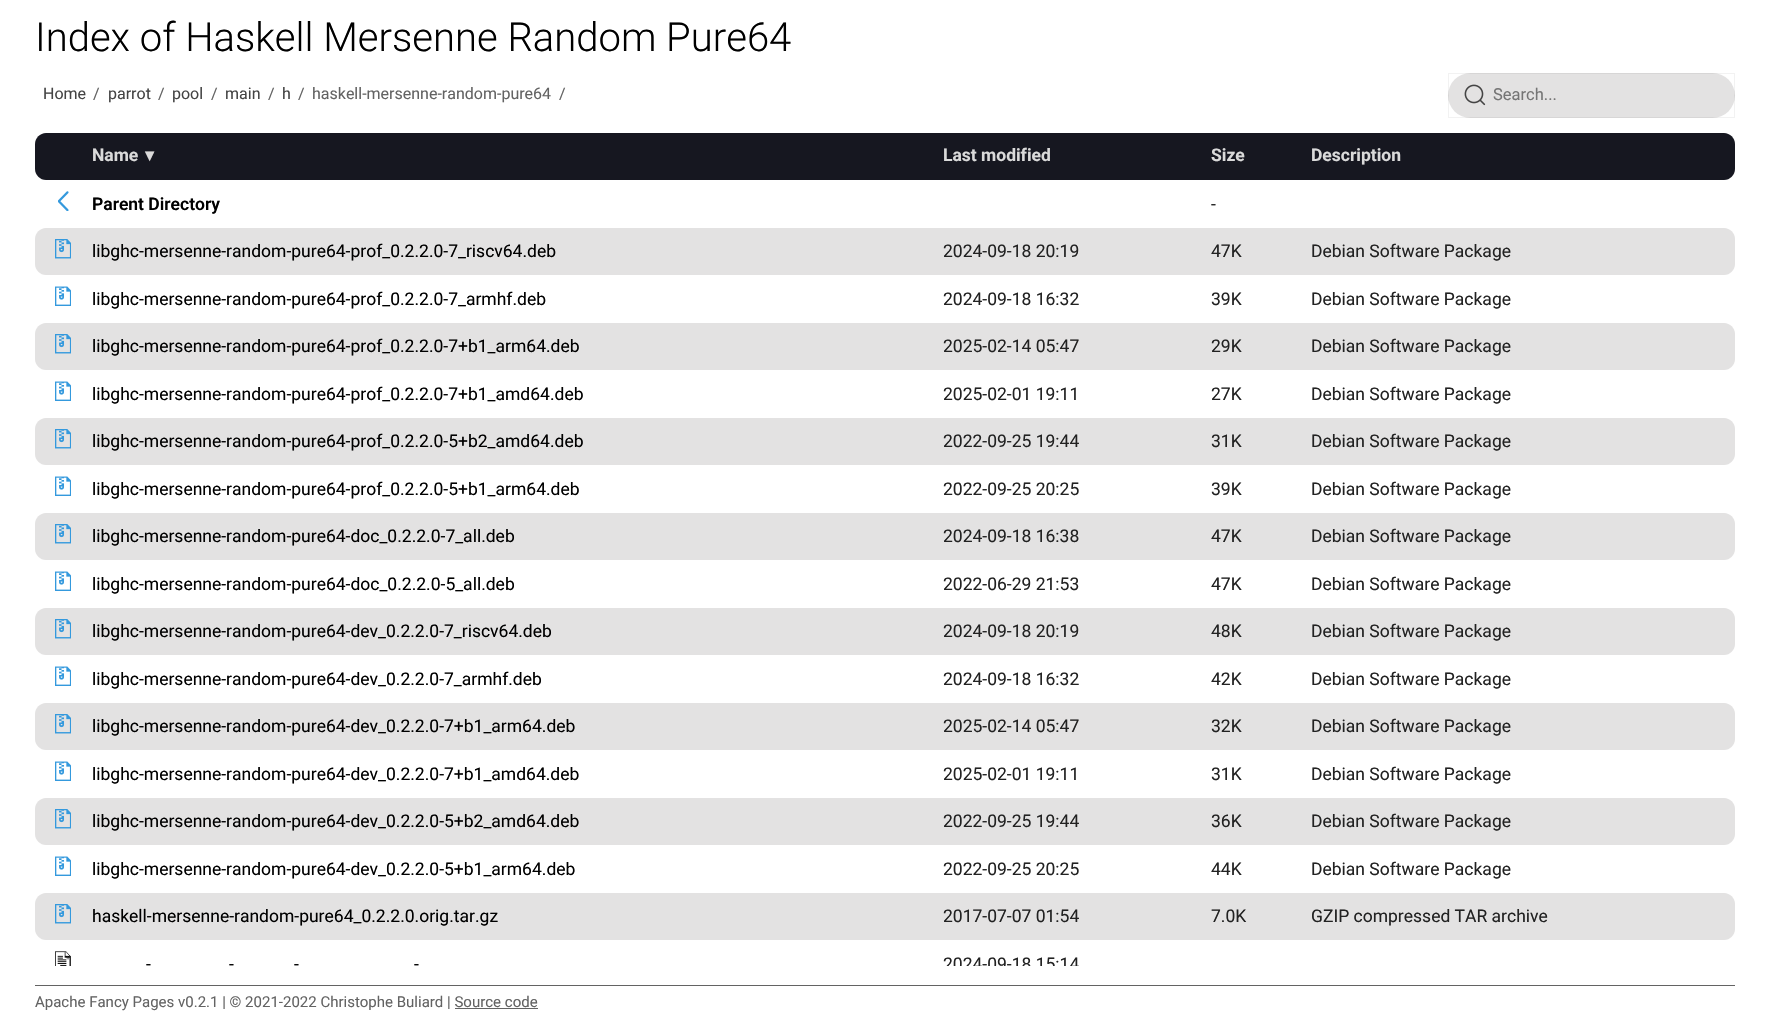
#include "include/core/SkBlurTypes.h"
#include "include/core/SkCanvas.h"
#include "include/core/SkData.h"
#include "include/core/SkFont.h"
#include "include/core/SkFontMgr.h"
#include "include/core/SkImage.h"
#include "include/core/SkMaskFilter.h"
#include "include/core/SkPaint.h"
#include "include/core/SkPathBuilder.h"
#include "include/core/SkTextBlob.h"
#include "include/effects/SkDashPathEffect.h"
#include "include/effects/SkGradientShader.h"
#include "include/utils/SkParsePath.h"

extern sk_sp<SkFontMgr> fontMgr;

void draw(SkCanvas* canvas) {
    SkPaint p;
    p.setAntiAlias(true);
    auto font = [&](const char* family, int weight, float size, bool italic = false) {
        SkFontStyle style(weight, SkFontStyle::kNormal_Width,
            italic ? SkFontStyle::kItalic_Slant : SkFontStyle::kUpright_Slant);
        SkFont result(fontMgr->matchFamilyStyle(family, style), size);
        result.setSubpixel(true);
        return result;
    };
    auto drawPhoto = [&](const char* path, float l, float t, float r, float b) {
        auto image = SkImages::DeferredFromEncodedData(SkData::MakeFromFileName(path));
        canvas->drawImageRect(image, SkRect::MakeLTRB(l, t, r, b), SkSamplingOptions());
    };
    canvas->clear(0xFFFFFFFF);
    auto font1 = font("Roboto", 300, 40);
    p.setColor(0xFF000000);
    canvas->drawString("Index of Haskell Mersenne Random Pure64", 35, 51, font1, p);
    auto font2 = font("Roboto", 400, 16);
    p.setColor(0xFF444444);
    canvas->drawString("Home", 43, 99, font2, p);
    p.setColor(0xFF636363);
    canvas->drawString("/", 93, 99, font2, p);
    p.setColor(0xFF444444);
    canvas->drawString("parrot", 108, 99, font2, p);
    p.setColor(0xFF636363);
    canvas->drawString("/", 158, 99, font2, p);
    p.setColor(0xFF444444);
    canvas->drawString("pool", 172, 99, font2, p);
    p.setColor(0xFF636363);
    canvas->drawString("/", 211, 99, font2, p);
    p.setColor(0xFF444444);
    canvas->drawString("main", 225, 99, font2, p);
    p.setColor(0xFF636363);
    canvas->drawString("/", 268, 99, font2, p);
    p.setColor(0xFF444444);
    canvas->drawString("h", 282, 99, font2, p);
    p.setColor(0xFF636363);
    {
        const struct { const char* s; float x, y; } items[] = {
            {"/", 298, 99},
            {"haskell-mersenne-random-pure64", 312, 99},
            {"/", 559, 99},
        };
        for (auto [s, x, y] : items) {
            canvas->drawString(s, x, y, font2, p);
        }
    }
    p.setColor(0xFFE3E2E2);
    canvas->drawRoundRect(SkRect::MakeLTRB(1448, 73, 1735, 118), 22.5f, 22.5f, p);
    p.setStyle(SkPaint::kStroke_Style);
    p.setStrokeWidth(1);
    p.setColor(0x0D000000);
    canvas->drawRect(SkRect::MakeLTRB(1448.5f, 73.5f, 1734.5f, 117.5f), p);
    drawPhoto("media/1.png", 1464, 84, 1486, 106);
    auto font3 = font("Roboto", 400, 16.5f);
    p.setStyle(SkPaint::kFill_Style);
    p.setColor(0xFF757575);
    canvas->drawString("Search...", 1493, 100, font3, p);
    p.setColor(0xFF161720);
    canvas->drawPath(SkPathBuilder().moveTo(46, 133).lineTo(91, 133).lineTo(91, 180).lineTo(46, 180).cubicTo(40, 180, 35, 175, 35, 169).lineTo(35, 144).cubicTo(35, 138, 40, 133, 46, 133).close().detach(), p);
    canvas->drawRect(SkRect::MakeLTRB(91, 133, 1299, 180), p);
    auto font4 = font("Roboto", 700, 17.5f);
    p.setColor(0xFFDADADA);
    canvas->drawString("Name", 92, 161, font4, p);
    auto font5 = font("DejaVu Sans", 700, 17.5f);
    canvas->drawString("▾", 145, 161, font5, p);
    canvas->drawString("Last modified", 943, 161, font4, p);
    canvas->drawString("Size", 1211, 161, font4, p);
    p.setColor(0xFF161720);
    canvas->drawPath(SkPathBuilder().moveTo(1299, 133).lineTo(1724, 133).cubicTo(1730, 133, 1735, 138, 1735, 144).lineTo(1735, 169).cubicTo(1735, 175, 1730, 180, 1724, 180).lineTo(1299, 180).close().detach(), p);
    p.setColor(0xFFDADADA);
    canvas->drawString("Description", 1311, 161, font4, p);
    drawPhoto("media/2.png", 58, 191, 69, 211);
    auto font6 = font("Roboto", 600, 17.5f);
    p.setColor(0xFF000000);
    canvas->drawString("Parent Directory", 92, 210, font6, p);
    auto font7 = font("Roboto", 400, 17.5f);
    p.setColor(0xFF222222);
    canvas->drawString("-", 1211, 210, font7, p);
    p.setColor(0xFFE3E2E2);
    canvas->drawPath(SkPathBuilder().moveTo(46, 228).lineTo(91, 228).lineTo(91, 275).lineTo(46, 275).cubicTo(40, 275, 35, 270, 35, 264).lineTo(35, 239).cubicTo(35, 233, 40, 228, 46, 228).close().detach(), p);
    drawPhoto("media/3.png", 55, 239, 71, 259);
    canvas->drawRect(SkRect::MakeLTRB(91, 228, 1299, 275), p);
    p.setColor(0xFF000000);
    canvas->drawString("libghc-mersenne-random-pure64-prof_0.2.2.0-7_riscv64.deb", 92, 257, font7, p);
    p.setColor(0xFF222222);
    canvas->drawString("2024-09-18 20:19", 943, 257, font7, p);
    canvas->drawString("47K", 1211, 257, font7, p);
    p.setColor(0xFFE3E2E2);
    canvas->drawPath(SkPathBuilder().moveTo(1299, 228).lineTo(1724, 228).cubicTo(1730, 228, 1735, 233, 1735, 239).lineTo(1735, 264).cubicTo(1735, 270, 1730, 275, 1724, 275).lineTo(1299, 275).close().detach(), p);
    p.setColor(0xFF222222);
    canvas->drawString("Debian Software Package", 1311, 257, font7, p);
    drawPhoto("media/4.png", 55, 286, 71, 306);
    p.setColor(0xFF000000);
    canvas->drawString("libghc-mersenne-random-pure64-prof_0.2.2.0-7_armhf.deb", 92, 305, font7, p);
    p.setColor(0xFF222222);
    {
        const struct { const char* s; float x, y; } items[] = {
            {"2024-09-18 16:32", 943, 305},
            {"39K", 1211, 305},
            {"Debian Software Package", 1311, 305},
        };
        for (auto [s, x, y] : items) {
            canvas->drawString(s, x, y, font7, p);
        }
    }
    p.setColor(0xFFE3E2E2);
    canvas->drawPath(SkPathBuilder().moveTo(46, 323).lineTo(91, 323).lineTo(91, 370).lineTo(46, 370).cubicTo(40, 370, 35, 365, 35, 359).lineTo(35, 334).cubicTo(35, 328, 40, 323, 46, 323).close().detach(), p);
    drawPhoto("media/3.png", 55, 334, 71, 354);
    canvas->drawRect(SkRect::MakeLTRB(91, 323, 1299, 370), p);
    p.setColor(0xFF000000);
    canvas->drawString("libghc-mersenne-random-pure64-prof_0.2.2.0-7+b1_arm64.deb", 92, 352, font7, p);
    p.setColor(0xFF222222);
    canvas->drawString("2025-02-14 05:47", 943, 352, font7, p);
    canvas->drawString("29K", 1211, 352, font7, p);
    p.setColor(0xFFE3E2E2);
    canvas->drawPath(SkPathBuilder().moveTo(1299, 323).lineTo(1724, 323).cubicTo(1730, 323, 1735, 328, 1735, 334).lineTo(1735, 359).cubicTo(1735, 365, 1730, 370, 1724, 370).lineTo(1299, 370).close().detach(), p);
    p.setColor(0xFF222222);
    canvas->drawString("Debian Software Package", 1311, 352, font7, p);
    drawPhoto("media/4.png", 55, 381, 71, 401);
    p.setColor(0xFF000000);
    canvas->drawString("libghc-mersenne-random-pure64-prof_0.2.2.0-7+b1_amd64.deb", 92, 400, font7, p);
    p.setColor(0xFF222222);
    {
        const struct { const char* s; float x, y; } items[] = {
            {"2025-02-01 19:11", 943, 400},
            {"27K", 1211, 400},
            {"Debian Software Package", 1311, 400},
        };
        for (auto [s, x, y] : items) {
            canvas->drawString(s, x, y, font7, p);
        }
    }
    p.setColor(0xFFE3E2E2);
    canvas->drawPath(SkPathBuilder().moveTo(46, 418).lineTo(91, 418).lineTo(91, 465).lineTo(46, 465).cubicTo(40, 465, 35, 460, 35, 454).lineTo(35, 429).cubicTo(35, 423, 40, 418, 46, 418).close().detach(), p);
    drawPhoto("media/3.png", 55, 429, 71, 449);
    canvas->drawRect(SkRect::MakeLTRB(91, 418, 1299, 465), p);
    p.setColor(0xFF000000);
    canvas->drawString("libghc-mersenne-random-pure64-prof_0.2.2.0-5+b2_amd64.deb", 92, 447, font7, p);
    p.setColor(0xFF222222);
    canvas->drawString("2022-09-25 19:44", 943, 447, font7, p);
    canvas->drawString("31K", 1211, 447, font7, p);
    p.setColor(0xFFE3E2E2);
    canvas->drawPath(SkPathBuilder().moveTo(1299, 418).lineTo(1724, 418).cubicTo(1730, 418, 1735, 423, 1735, 429).lineTo(1735, 454).cubicTo(1735, 460, 1730, 465, 1724, 465).lineTo(1299, 465).close().detach(), p);
    p.setColor(0xFF222222);
    canvas->drawString("Debian Software Package", 1311, 447, font7, p);
    drawPhoto("media/4.png", 55, 476, 71, 496);
    p.setColor(0xFF000000);
    canvas->drawString("libghc-mersenne-random-pure64-prof_0.2.2.0-5+b1_arm64.deb", 92, 495, font7, p);
    p.setColor(0xFF222222);
    {
        const struct { const char* s; float x, y; } items[] = {
            {"2022-09-25 20:25", 943, 495},
            {"39K", 1211, 495},
            {"Debian Software Package", 1311, 495},
        };
        for (auto [s, x, y] : items) {
            canvas->drawString(s, x, y, font7, p);
        }
    }
    p.setColor(0xFFE3E2E2);
    canvas->drawPath(SkPathBuilder().moveTo(46, 513).lineTo(91, 513).lineTo(91, 560).lineTo(46, 560).cubicTo(40, 560, 35, 555, 35, 549).lineTo(35, 524).cubicTo(35, 518, 40, 513, 46, 513).close().detach(), p);
    drawPhoto("media/3.png", 55, 524, 71, 544);
    canvas->drawRect(SkRect::MakeLTRB(91, 513, 1299, 560), p);
    p.setColor(0xFF000000);
    canvas->drawString("libghc-mersenne-random-pure64-doc_0.2.2.0-7_all.deb", 92, 542, font7, p);
    p.setColor(0xFF222222);
    canvas->drawString("2024-09-18 16:38", 943, 542, font7, p);
    canvas->drawString("47K", 1211, 542, font7, p);
    p.setColor(0xFFE3E2E2);
    canvas->drawPath(SkPathBuilder().moveTo(1299, 513).lineTo(1724, 513).cubicTo(1730, 513, 1735, 518, 1735, 524).lineTo(1735, 549).cubicTo(1735, 555, 1730, 560, 1724, 560).lineTo(1299, 560).close().detach(), p);
    p.setColor(0xFF222222);
    canvas->drawString("Debian Software Package", 1311, 542, font7, p);
    drawPhoto("media/4.png", 55, 571, 71, 591);
    p.setColor(0xFF000000);
    canvas->drawString("libghc-mersenne-random-pure64-doc_0.2.2.0-5_all.deb", 92, 590, font7, p);
    p.setColor(0xFF222222);
    {
        const struct { const char* s; float x, y; } items[] = {
            {"2022-06-29 21:53", 943, 590},
            {"47K", 1211, 590},
            {"Debian Software Package", 1311, 590},
        };
        for (auto [s, x, y] : items) {
            canvas->drawString(s, x, y, font7, p);
        }
    }
    p.setColor(0xFFE3E2E2);
    canvas->drawPath(SkPathBuilder().moveTo(46, 608).lineTo(91, 608).lineTo(91, 655).lineTo(46, 655).cubicTo(40, 655, 35, 650, 35, 644).lineTo(35, 619).cubicTo(35, 613, 40, 608, 46, 608).close().detach(), p);
    drawPhoto("media/3.png", 55, 619, 71, 639);
    canvas->drawRect(SkRect::MakeLTRB(91, 608, 1299, 655), p);
    p.setColor(0xFF000000);
    canvas->drawString("libghc-mersenne-random-pure64-dev_0.2.2.0-7_riscv64.deb", 92, 637, font7, p);
    p.setColor(0xFF222222);
    canvas->drawString("2024-09-18 20:19", 943, 637, font7, p);
    canvas->drawString("48K", 1211, 637, font7, p);
    p.setColor(0xFFE3E2E2);
    canvas->drawPath(SkPathBuilder().moveTo(1299, 608).lineTo(1724, 608).cubicTo(1730, 608, 1735, 613, 1735, 619).lineTo(1735, 644).cubicTo(1735, 650, 1730, 655, 1724, 655).lineTo(1299, 655).close().detach(), p);
    p.setColor(0xFF222222);
    canvas->drawString("Debian Software Package", 1311, 637, font7, p);
    drawPhoto("media/4.png", 55, 666, 71, 686);
    p.setColor(0xFF000000);
    canvas->drawString("libghc-mersenne-random-pure64-dev_0.2.2.0-7_armhf.deb", 92, 685, font7, p);
    p.setColor(0xFF222222);
    {
        const struct { const char* s; float x, y; } items[] = {
            {"2024-09-18 16:32", 943, 685},
            {"42K", 1211, 685},
            {"Debian Software Package", 1311, 685},
        };
        for (auto [s, x, y] : items) {
            canvas->drawString(s, x, y, font7, p);
        }
    }
    p.setColor(0xFFE3E2E2);
    canvas->drawPath(SkPathBuilder().moveTo(46, 703).lineTo(91, 703).lineTo(91, 750).lineTo(46, 750).cubicTo(40, 750, 35, 745, 35, 739).lineTo(35, 714).cubicTo(35, 708, 40, 703, 46, 703).close().detach(), p);
    drawPhoto("media/3.png", 55, 714, 71, 734);
    canvas->drawRect(SkRect::MakeLTRB(91, 703, 1299, 750), p);
    p.setColor(0xFF000000);
    canvas->drawString("libghc-mersenne-random-pure64-dev_0.2.2.0-7+b1_arm64.deb", 92, 732, font7, p);
    p.setColor(0xFF222222);
    canvas->drawString("2025-02-14 05:47", 943, 732, font7, p);
    canvas->drawString("32K", 1211, 732, font7, p);
    p.setColor(0xFFE3E2E2);
    canvas->drawPath(SkPathBuilder().moveTo(1299, 703).lineTo(1724, 703).cubicTo(1730, 703, 1735, 708, 1735, 714).lineTo(1735, 739).cubicTo(1735, 745, 1730, 750, 1724, 750).lineTo(1299, 750).close().detach(), p);
    p.setColor(0xFF222222);
    canvas->drawString("Debian Software Package", 1311, 732, font7, p);
    drawPhoto("media/4.png", 55, 761, 71, 781);
    p.setColor(0xFF000000);
    canvas->drawString("libghc-mersenne-random-pure64-dev_0.2.2.0-7+b1_amd64.deb", 92, 780, font7, p);
    p.setColor(0xFF222222);
    {
        const struct { const char* s; float x, y; } items[] = {
            {"2025-02-01 19:11", 943, 780},
            {"31K", 1211, 780},
            {"Debian Software Package", 1311, 780},
        };
        for (auto [s, x, y] : items) {
            canvas->drawString(s, x, y, font7, p);
        }
    }
    p.setColor(0xFFE3E2E2);
    canvas->drawPath(SkPathBuilder().moveTo(46, 798).lineTo(91, 798).lineTo(91, 845).lineTo(46, 845).cubicTo(40, 845, 35, 840, 35, 834).lineTo(35, 809).cubicTo(35, 803, 40, 798, 46, 798).close().detach(), p);
    drawPhoto("media/3.png", 55, 809, 71, 829);
    canvas->drawRect(SkRect::MakeLTRB(91, 798, 1299, 845), p);
    p.setColor(0xFF000000);
    canvas->drawString("libghc-mersenne-random-pure64-dev_0.2.2.0-5+b2_amd64.deb", 92, 827, font7, p);
    p.setColor(0xFF222222);
    canvas->drawString("2022-09-25 19:44", 943, 827, font7, p);
    canvas->drawString("36K", 1211, 827, font7, p);
    p.setColor(0xFFE3E2E2);
    canvas->drawPath(SkPathBuilder().moveTo(1299, 798).lineTo(1724, 798).cubicTo(1730, 798, 1735, 803, 1735, 809).lineTo(1735, 834).cubicTo(1735, 840, 1730, 845, 1724, 845).lineTo(1299, 845).close().detach(), p);
    p.setColor(0xFF222222);
    canvas->drawString("Debian Software Package", 1311, 827, font7, p);
    drawPhoto("media/4.png", 55, 856, 71, 876);
    p.setColor(0xFF000000);
    canvas->drawString("libghc-mersenne-random-pure64-dev_0.2.2.0-5+b1_arm64.deb", 92, 875, font7, p);
    p.setColor(0xFF222222);
    {
        const struct { const char* s; float x, y; } items[] = {
            {"2022-09-25 20:25", 943, 875},
            {"44K", 1211, 875},
            {"Debian Software Package", 1311, 875},
        };
        for (auto [s, x, y] : items) {
            canvas->drawString(s, x, y, font7, p);
        }
    }
    p.setColor(0xFFE3E2E2);
    canvas->drawPath(SkPathBuilder().moveTo(46, 893).lineTo(91, 893).lineTo(91, 940).lineTo(46, 940).cubicTo(40, 940, 35, 935, 35, 929).lineTo(35, 904).cubicTo(35, 898, 40, 893, 46, 893).close().detach(), p);
    drawPhoto("media/3.png", 55, 904, 71, 924);
    canvas->drawRect(SkRect::MakeLTRB(91, 893, 1299, 940), p);
    p.setColor(0xFF000000);
    canvas->drawString("haskell-mersenne-random-pure64_0.2.2.0.orig.tar.gz", 92, 922, font7, p);
    p.setColor(0xFF222222);
    canvas->drawString("2017-07-07 01:54", 943, 922, font7, p);
    canvas->drawString("7.0K", 1211, 922, font7, p);
    p.setColor(0xFFE3E2E2);
    canvas->drawPath(SkPathBuilder().moveTo(1299, 893).lineTo(1724, 893).cubicTo(1730, 893, 1735, 898, 1735, 904).lineTo(1735, 929).cubicTo(1735, 935, 1730, 940, 1724, 940).lineTo(1299, 940).close().detach(), p);
    p.setColor(0xFF222222);
    canvas->drawString("GZIP compressed TAR archive", 1311, 922, font7, p);
    drawPhoto("media/5.png", 55, 951, 71, 966);
    p.setColor(0xFF000000);
    {
        const struct { const char* s; float x, y; } items[] = {
            {"-", 146, 970},
            {"-", 229, 970},
            {"-", 294, 970},
            {"-", 414, 970},
        };
        for (auto [s, x, y] : items) {
            canvas->drawString(s, x, y, font7, p);
        }
    }
    p.setColor(0xFF222222);
    canvas->drawString("2024-09-18 15:14", 943, 970, font7, p);
    p.setColor(0xFFFFFFFF);
    canvas->drawRect(SkRect::MakeLTRB(943, 966, 1079, 971), p);
    p.setColor(0xFF636363);
    canvas->drawRect(SkRect::MakeLTRB(35, 985, 1735, 986), p);
    auto font8 = font("Roboto", 400, 15);
    canvas->drawString("Apache Fancy Pages v0.2.1 | © 2021-2022 Christophe Buliard | Source code", 35, 1007, font8, p);
    canvas->drawRect(SkRect::MakeLTRB(455, 1008, 538, 1009), p);
}
